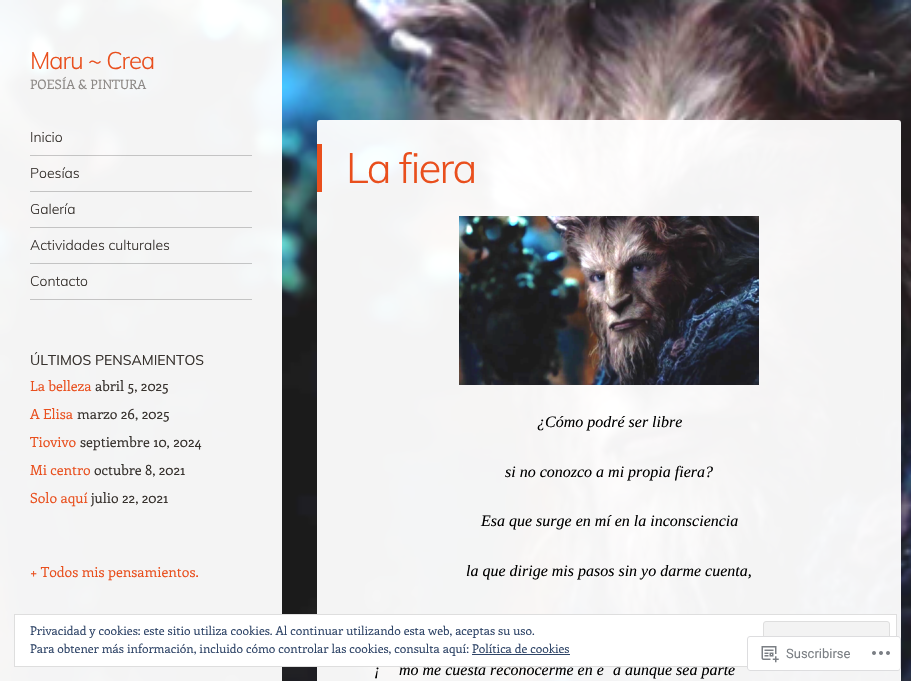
#include "include/core/SkBlurTypes.h"
#include "include/core/SkCanvas.h"
#include "include/core/SkData.h"
#include "include/core/SkFont.h"
#include "include/core/SkFontMgr.h"
#include "include/core/SkImage.h"
#include "include/core/SkMaskFilter.h"
#include "include/core/SkPaint.h"
#include "include/core/SkPathBuilder.h"
#include "include/core/SkTextBlob.h"
#include "include/effects/SkDashPathEffect.h"
#include "include/effects/SkGradientShader.h"
#include "include/utils/SkParsePath.h"

extern sk_sp<SkFontMgr> fontMgr;

void draw(SkCanvas* canvas) {
    SkPaint p;
    p.setAntiAlias(true);
    auto font = [&](const char* family, int weight, float size, bool italic = false) {
        SkFontStyle style(weight, SkFontStyle::kNormal_Width,
            italic ? SkFontStyle::kItalic_Slant : SkFontStyle::kUpright_Slant);
        SkFont result(fontMgr->matchFamilyStyle(family, style), size);
        result.setSubpixel(true);
        return result;
    };
    auto drawTracked = [&](const char* s, float x, float y, const SkFont& font, const SkPaint& ink, float letter, float word) {
        std::vector<SkGlyphID> glyphs(font.countText(s, strlen(s), SkTextEncoding::kUTF8));
        std::vector<float> xs(glyphs.size());
        font.textToGlyphs(s, strlen(s), SkTextEncoding::kUTF8, glyphs);
        font.getXPos(glyphs, xs, x);
        float extra = 0;
        for (size_t i = 0; i < glyphs.size(); i++) {
            xs[i] += extra;
            extra += letter + word * (glyphs[i] == font.unicharToGlyph(' '));
        }
        canvas->drawTextBlob(SkTextBlob::MakeFromPosHGlyphs(glyphs, xs, y, font), 0, 0, ink);
    };
    auto drawPhoto = [&](const char* path, float l, float t, float r, float b) {
        auto image = SkImages::DeferredFromEncodedData(SkData::MakeFromFileName(path));
        canvas->drawImageRect(image, SkRect::MakeLTRB(l, t, r, b), SkSamplingOptions());
    };
    canvas->clear(0xFFFFFFFF);
    drawPhoto("media/1.png", 0, 0, 911, 681);
    p.setColor(0xF2FFFFFF);
    canvas->drawRect(SkRect::MakeLTRB(0, 0, 282, 681), p);
    auto font1 = font("Muli", 300, 24);
    p.setColor(0xFFE94F1D);
    drawTracked("Maru ~ Crea", 30, 69, font1, p, -1, 0);
    auto font2 = font("Enriqueta", 400, 13);
    p.setColor(0xFF8C8885);
    canvas->drawString("POESÍA & PINTURA", 30, 89, font2, p);
    p.setColor(0x33000000);
    canvas->drawRect(SkRect::MakeLTRB(30, 155, 252, 156), p);
    auto font3 = font("Muli", 300, 14);
    p.setColor(0xFF36312D);
    canvas->drawString("Inicio", 30, 142, font3, p);
    p.setColor(0xFFC3C3C3);
    canvas->drawRect(SkRect::MakeLTRB(30, 191, 252, 192), p);
    p.setColor(0xFF36312D);
    canvas->drawString("Poesías", 30, 178, font3, p);
    p.setColor(0xFFC3C3C3);
    canvas->drawRect(SkRect::MakeLTRB(30, 227, 252, 228), p);
    p.setColor(0xFF36312D);
    canvas->drawString("Galería", 30, 214, font3, p);
    p.setColor(0x33000000);
    canvas->drawRect(SkRect::MakeLTRB(30, 263, 252, 264), p);
    p.setColor(0xFF36312D);
    canvas->drawString("Actividades culturales", 30, 250, font3, p);
    p.setColor(0xFFC3C3C3);
    canvas->drawRect(SkRect::MakeLTRB(30, 299, 252, 300), p);
    p.setColor(0xFF36312D);
    canvas->drawString("Contacto", 30, 286, font3, p);
    p.setColor(0xF2FFFFFF);
    canvas->drawRoundRect(SkRect::MakeLTRB(317, 120, 901, 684), 3, 3, p);
    p.setColor(0xFFE94F1D);
    canvas->drawRect(SkRect::MakeLTRB(317, 144, 322, 192), p);
    auto font4 = font("Muli", 300, 42);
    drawTracked("La fiera", 346, 183, font4, p, -1.75f, 0);
    drawPhoto("media/2.png", 459, 216, 759, 385);
    auto font5 = font("Liberation Serif", 400, 16, true);
    p.setColor(0xFF000000);
    {
        const struct { const char* s; float x, y; } items[] = {
            {"¿Cómo podré ser libre", 537, 427},
            {"si no conozco a mi propia fiera?", 505, 477},
            {"Esa que surge en mí en la inconsciencia", 481, 526},
            {"la que dirige mis pasos sin yo darme cuenta,", 466, 576},
            {"¡", 374, 675},
            {"mo me cuesta reconocerme en e", 399, 675},
            {"a aunque sea parte", 613, 675},
        };
        for (auto [s, x, y] : items) {
            canvas->drawString(s, x, y, font5, p);
        }
    }
    auto font6 = font("Muli", 400, 14);
    p.setColor(0xFF36312D);
    canvas->drawString("ÚLTIMOS PENSAMIENTOS", 30, 365, font6, p);
    auto font7 = font("Enriqueta", 400, 14);
    p.setColor(0xFFE94F1D);
    canvas->drawString("La belleza", 30, 391, font7, p);
    p.setColor(0xFF36312D);
    canvas->drawString("abril 5, 2025", 95, 391, font7, p);
    p.setColor(0xFFE94F1D);
    canvas->drawString("A Elisa", 30, 419, font7, p);
    p.setColor(0xFF36312D);
    canvas->drawString("marzo 26, 2025", 77, 419, font7, p);
    p.setColor(0xFFE94F1D);
    canvas->drawString("Tiovivo", 30, 447, font7, p);
    p.setColor(0xFF36312D);
    canvas->drawString("septiembre 10, 2024", 80, 447, font7, p);
    p.setColor(0xFFE94F1D);
    canvas->drawString("Mi centro", 30, 475, font7, p);
    p.setColor(0xFF36312D);
    canvas->drawString("octubre 8, 2021", 94, 475, font7, p);
    p.setColor(0xFFE94F1D);
    canvas->drawString("Solo aquí", 30, 503, font7, p);
    p.setColor(0xFF36312D);
    canvas->drawString("julio 22, 2021", 91, 503, font7, p);
    p.setColor(0xFFE94F1D);
    canvas->drawString("+ Todos mis pensamientos.", 30, 577, font7, p);
    p.setColor(0xFFFFFFFF);
    canvas->drawRect(SkRect::MakeLTRB(14.5f, 614.5f, 896.5f, 666.5f), p);
    p.setStyle(SkPaint::kStroke_Style);
    p.setStrokeWidth(1);
    p.setColor(0xFFDEDEDE);
    canvas->drawRect(SkRect::MakeLTRB(14.5f, 614.5f, 896.5f, 666.5f), p);
    auto font8 = font("Enriqueta", 400, 12);
    p.setStyle(SkPaint::kFill_Style);
    p.setColor(0xFF2E4467);
    canvas->drawString("Privacidad y cookies: este sitio utiliza cookies. Al continuar utilizando esta web, aceptas su uso.", 30, 635, font8, p);
    p.setColor(0xFFF3F3F3);
    canvas->drawRoundRect(SkRect::MakeLTRB(763.5f, 621.5f, 889.5f, 659.5f), 2.5f, 2.5f, p);
    p.setStyle(SkPaint::kStroke_Style);
    p.setColor(0xFFDEDEDE);
    canvas->drawRoundRect(SkRect::MakeLTRB(763.5f, 621.5f, 889.5f, 659.5f), 2.5f, 2.5f, p);
    p.setStyle(SkPaint::kFill_Style);
    p.setColor(0xFF2E4467);
    canvas->drawString("Para obtener más información, incluido cómo controlar las cookies, consulta aquí: Política de cookies", 30, 653, font8, p);
    canvas->drawRect(SkRect::MakeLTRB(472, 654, 570, 655), p);
    p.setColor(0xFAFFFFFF);
    canvas->drawRoundRect(SkRect::MakeLTRB(747, 636, 901, 671), 3, 3, p);
    p.setStyle(SkPaint::kStroke_Style);
    p.setColor(0xFADCDCDE);
    canvas->drawRoundRect(SkRect::MakeLTRB(747.5f, 636.5f, 900.5f, 670.5f), 2.5f, 2.5f, p);
    drawPhoto("media/3.png", 761, 646, 779, 663);
    auto font9 = font("Roboto", 400, 13);
    p.setStyle(SkPaint::kFill_Style);
    p.setColor(0xFF7B7F84);
    canvas->drawString("Suscribirse", 786, 658, font9, p);
    drawPhoto("media/4.png", 872, 651, 890, 655);
}
